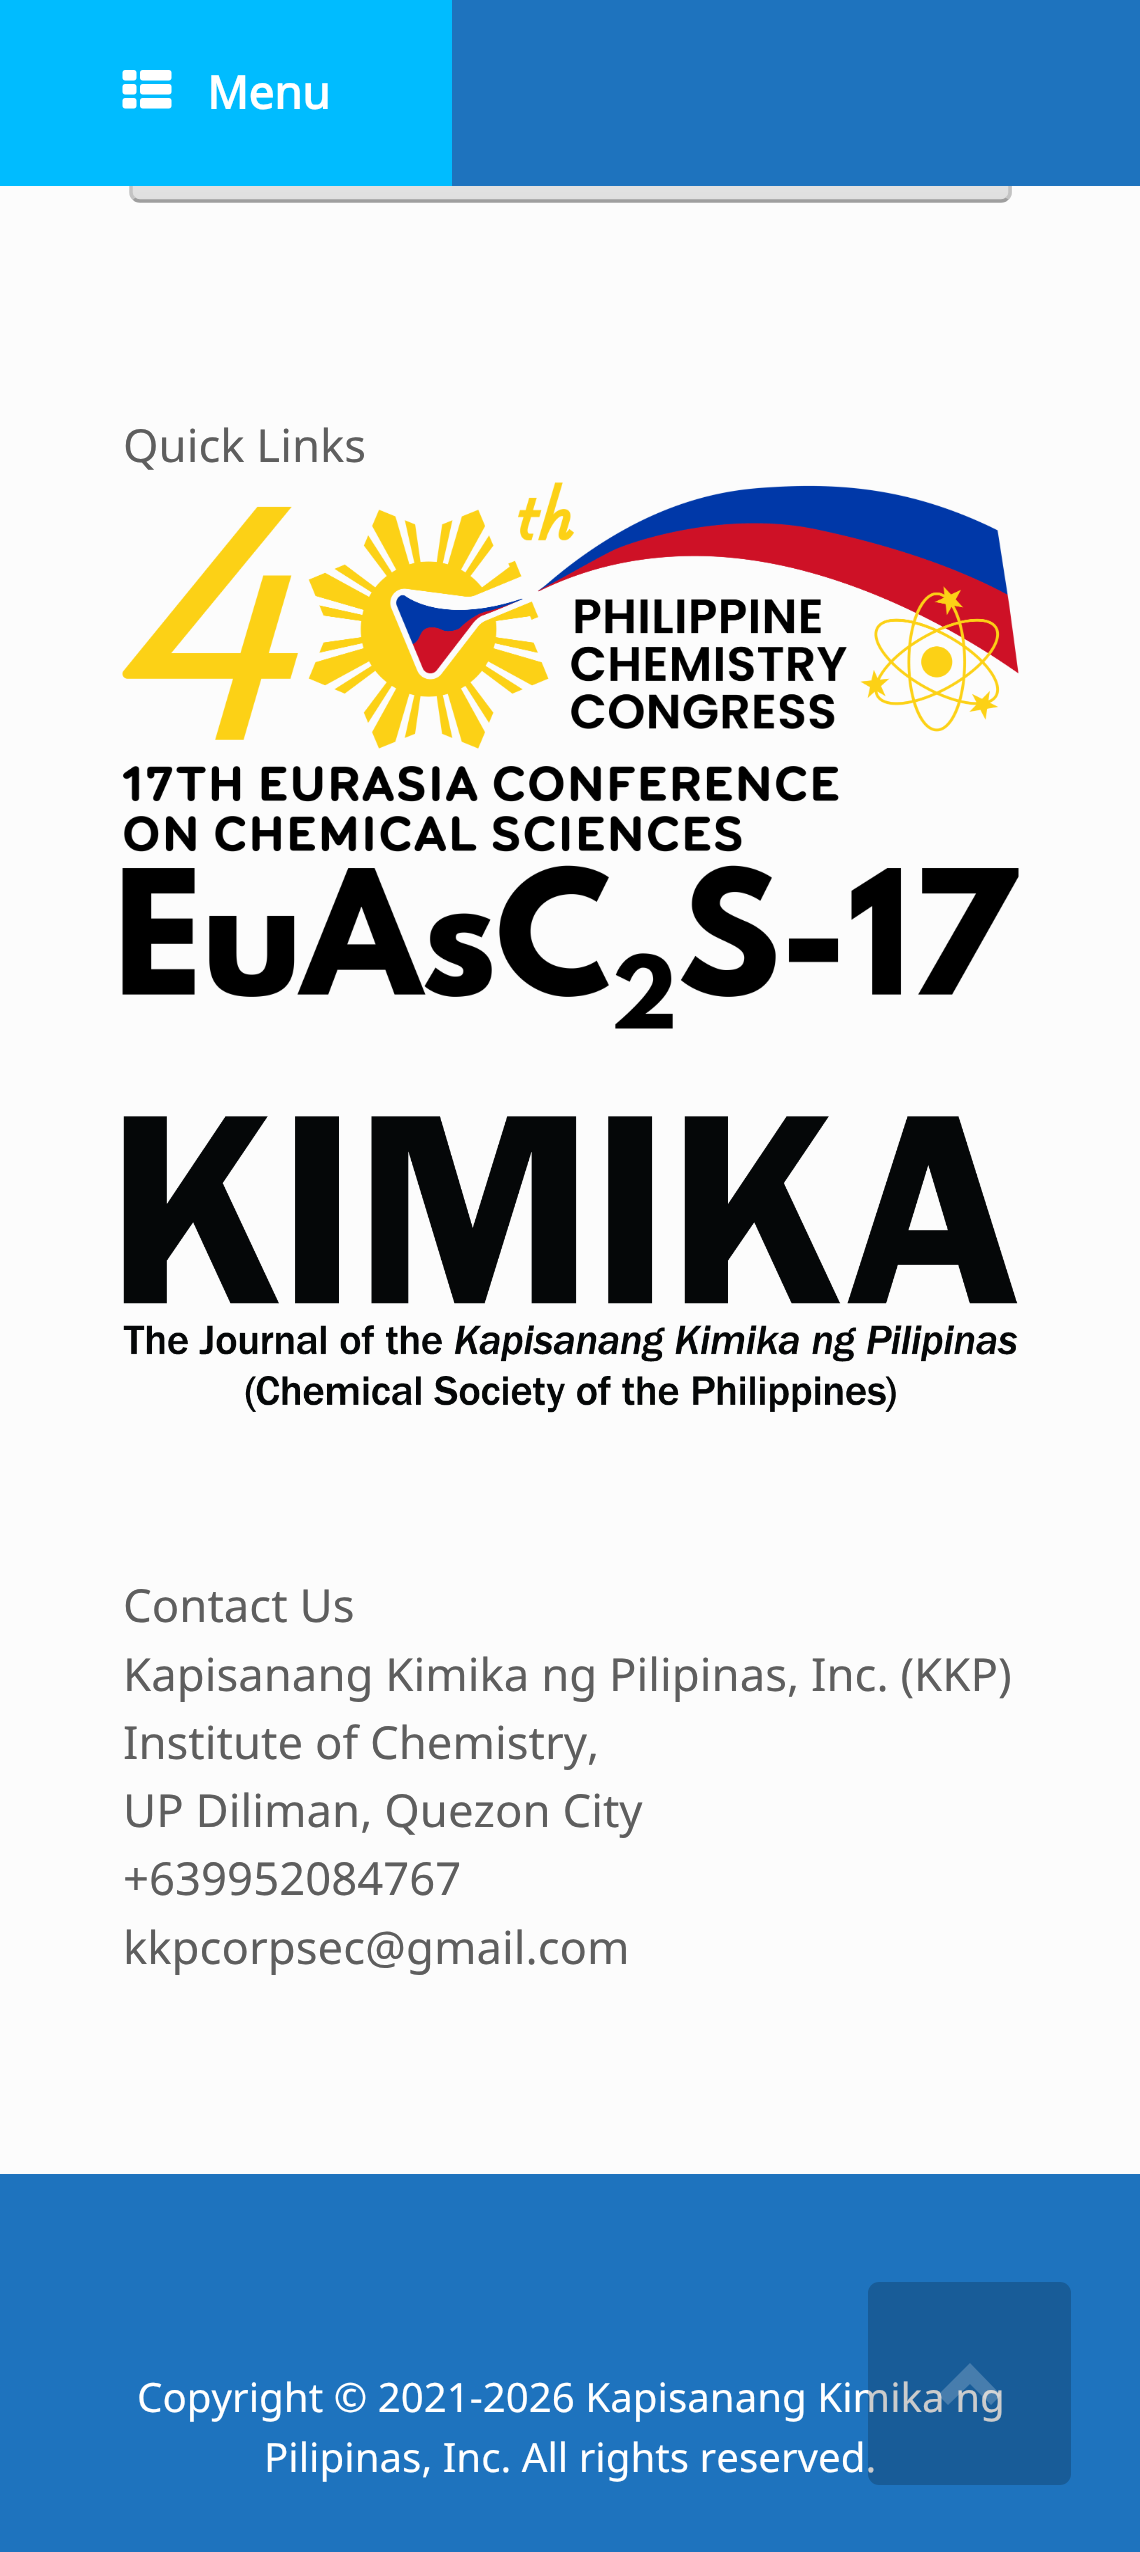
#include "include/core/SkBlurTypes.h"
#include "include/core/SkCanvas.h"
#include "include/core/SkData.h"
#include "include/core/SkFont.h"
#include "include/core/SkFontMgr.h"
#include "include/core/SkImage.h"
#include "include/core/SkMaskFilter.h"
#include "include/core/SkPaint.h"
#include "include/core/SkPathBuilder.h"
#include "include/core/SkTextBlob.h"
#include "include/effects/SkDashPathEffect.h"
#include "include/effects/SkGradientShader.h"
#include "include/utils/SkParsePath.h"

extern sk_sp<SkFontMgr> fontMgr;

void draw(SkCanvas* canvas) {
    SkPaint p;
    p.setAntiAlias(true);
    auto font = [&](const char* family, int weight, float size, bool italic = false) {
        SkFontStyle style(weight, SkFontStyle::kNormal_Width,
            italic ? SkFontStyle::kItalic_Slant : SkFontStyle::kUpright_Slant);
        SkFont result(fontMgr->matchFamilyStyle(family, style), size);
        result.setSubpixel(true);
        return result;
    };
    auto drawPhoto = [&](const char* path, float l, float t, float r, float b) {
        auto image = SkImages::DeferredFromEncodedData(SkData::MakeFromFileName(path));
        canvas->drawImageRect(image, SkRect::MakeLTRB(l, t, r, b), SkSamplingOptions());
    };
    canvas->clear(0xFF1E73BE);
    p.setColor(0xFFFCFCFC);
    canvas->drawRect(SkRect::MakeLTRB(0, 186, 1140, 2174), p);
    canvas->save();
    canvas->clipPath(SkPathBuilder().moveTo(141, 32).lineTo(1001, 32).cubicTo(1007, 32, 1012, 37, 1012, 43).lineTo(1012, 192).cubicTo(1012, 198, 1007, 203, 1001, 203).lineTo(141, 203).cubicTo(135, 203, 130, 198, 130, 192).lineTo(130, 43).cubicTo(130, 37, 135, 32, 141, 32).close().detach(), true);
    {
        const SkColor colors[] = {0xFFDFDFDF, 0xFFFFFFFF};
        const float stops[] = {0, 1};
        const SkPoint ends[] = {{133, 200}, {133, 35}};
        p.setShader(SkGradientShader::MakeLinear(ends, colors, stops, 2, SkTileMode::kClamp));
        p.setAlpha(255);
    }
    canvas->drawRect(SkRect::MakeLTRB(130, 186, 1012, 200), p);
    canvas->restore();
    p.setStyle(SkPaint::kStroke_Style);
    p.setStrokeWidth(3.5f);
    p.setShader(nullptr);
    p.setColor(0xFFC3C3C3);
    canvas->drawPath(SkPathBuilder().moveTo(1007, 36).cubicTo(1009, 37.5f, 1010, 39.5f, 1010, 42).lineTo(1010, 192.5f).cubicTo(1010, 195, 1009, 197, 1007, 198.5f).detach(), p);
    p.setStyle(SkPaint::kFill_Style);
    p.setColor(0xFF1E73BE);
    canvas->drawRect(SkRect::MakeLTRB(452, 34, 1012, 186), p);
    canvas->save();
    canvas->clipPath(SkPathBuilder().moveTo(141, 32).lineTo(1001, 32).cubicTo(1007, 32, 1012, 37, 1012, 43).lineTo(1012, 192).cubicTo(1012, 198, 1007, 203, 1001, 203).lineTo(141, 203).cubicTo(135, 203, 130, 198, 130, 192).lineTo(130, 43).cubicTo(130, 37, 135, 32, 141, 32).close().detach(), true);
    {
        const SkColor colors[] = {0xFFDFDFDF, 0xFFFFFFFF};
        const float stops[] = {0, 1};
        const SkPoint ends[] = {{133, 364}, {133, 200}};
        p.setShader(SkGradientShader::MakeLinear(ends, colors, stops, 2, SkTileMode::kClamp));
        p.setAlpha(255);
    }
    canvas->drawRect(SkRect::MakeLTRB(130, 200, 1012, 203), p);
    canvas->restore();
    p.setStyle(SkPaint::kStroke_Style);
    p.setShader(nullptr);
    p.setColor(0xFF9F9F9F);
    canvas->drawPath(SkPathBuilder().moveTo(1007, 198.5f).cubicTo(1005.5f, 200.5f, 1003.5f, 201, 1001, 201).lineTo(140, 201).cubicTo(137.5f, 201, 135.5f, 200.5f, 134, 198.5f).detach(), p);
    p.setColor(0xFFC3C3C3);
    canvas->drawPath(SkPathBuilder().moveTo(134, 198.5f).cubicTo(132, 197, 131, 195, 131, 192.5f).lineTo(131, 42).cubicTo(131, 39.5f, 132, 37.5f, 134, 36).detach(), p);
    p.setStyle(SkPaint::kFill_Style);
    p.setColor(0xFF00BCFF);
    canvas->drawRect(SkRect::MakeLTRB(0, 0, 452, 186), p);
    drawPhoto("media/1.png", 122, 70, 172, 109);
    auto font1 = font("Noto Sans", 700, 45.5f);
    p.setColor(0xFFFFFFFF);
    canvas->drawString("Menu", 207, 109, font1, p);
    auto font2 = font("Noto Sans", 400, 45.5f);
    p.setColor(0xFF5E5E5E);
    canvas->drawString("Quick Links", 123, 462, font2, p);
    drawPhoto("media/2.png", 122, 482, 1019, 749);
    drawPhoto("media/3.png", 122, 766, 1019, 1029);
    drawPhoto("media/4.png", 123, 1116, 1018, 1413);
    {
        const struct { const char* s; float x, y; } items[] = {
            {"Contact Us", 123, 1622},
            {"Kapisanang Kimika ng Pilipinas, Inc. (KKP)", 123, 1691},
            {"Institute of Chemistry,", 123, 1759},
            {"UP Diliman, Quezon City", 123, 1827},
            {"+639952084767", 123, 1895},
            {"kkpcorpsec@gmail.com", 123, 1964},
        };
        for (auto [s, x, y] : items) {
            canvas->drawString(s, x, y, font2, p);
        }
    }
    auto font3 = font("Noto Sans", 400, 40.25f);
    p.setColor(0xFFFFFFFF);
    canvas->drawString("Copyright © 2021-2026 Kapisanang Kimika ng", 137, 2412, font3, p);
    canvas->drawString("Pilipinas, Inc. All rights reserved.", 264, 2472, font3, p);
    p.setColor(0x33000000);
    canvas->drawRoundRect(SkRect::MakeLTRB(868, 2282, 1071, 2485), 11, 11, p);
    p.setColor(0x33FFFFFF);
    canvas->drawPath(SkPathBuilder().moveTo(1001, 2395).lineTo(970, 2363).lineTo(938, 2395).lineTo(948, 2405).lineTo(970, 2384).lineTo(991, 2405).close().detach(), p);
}
